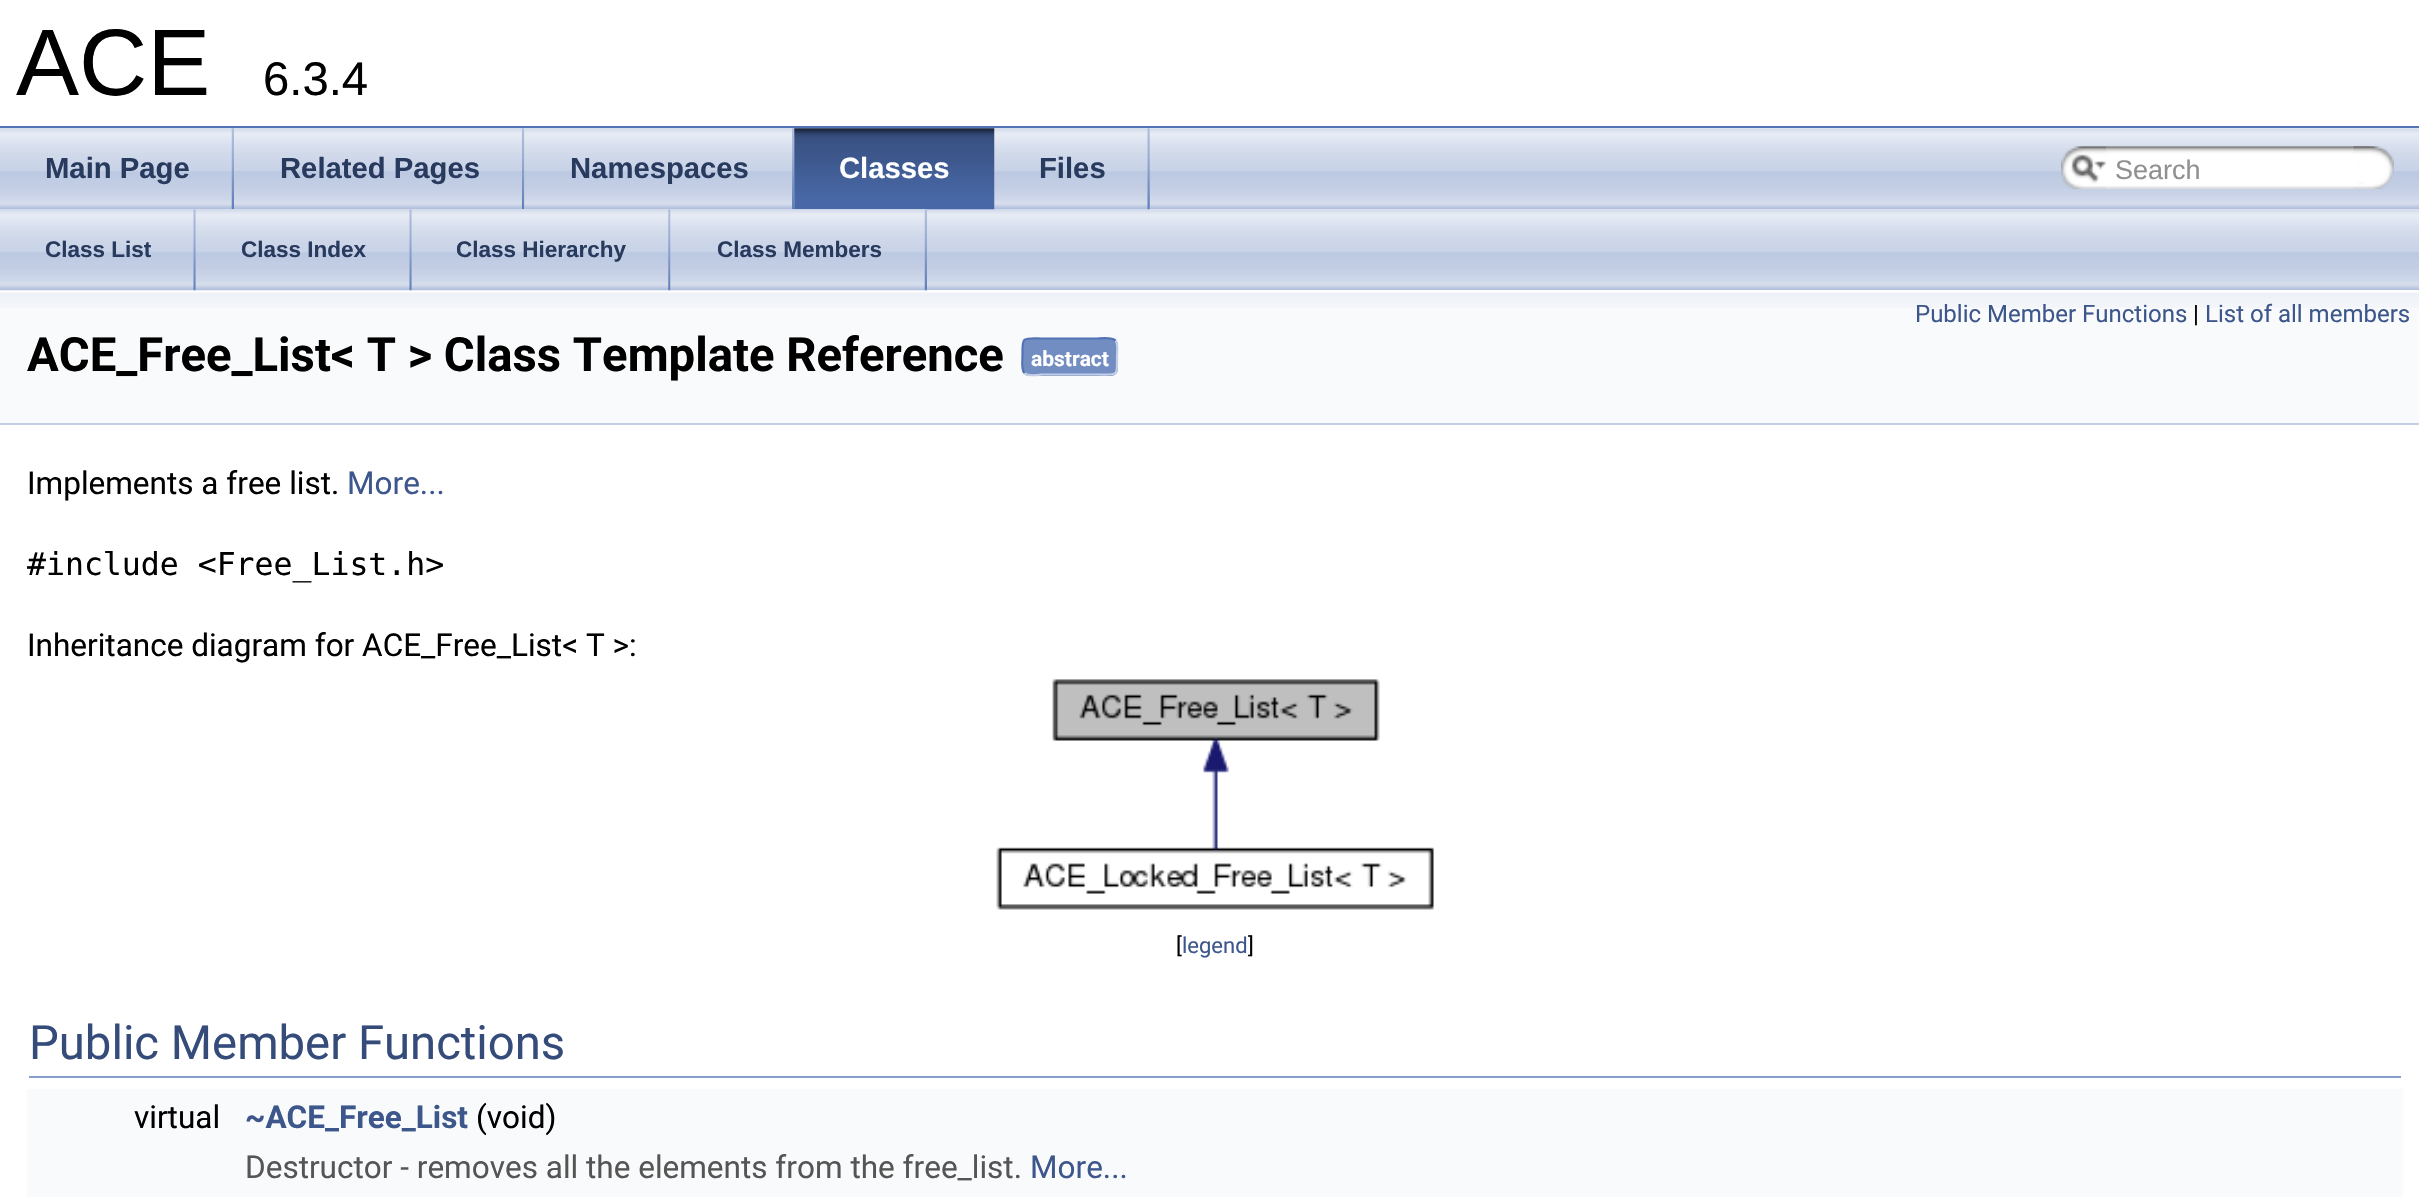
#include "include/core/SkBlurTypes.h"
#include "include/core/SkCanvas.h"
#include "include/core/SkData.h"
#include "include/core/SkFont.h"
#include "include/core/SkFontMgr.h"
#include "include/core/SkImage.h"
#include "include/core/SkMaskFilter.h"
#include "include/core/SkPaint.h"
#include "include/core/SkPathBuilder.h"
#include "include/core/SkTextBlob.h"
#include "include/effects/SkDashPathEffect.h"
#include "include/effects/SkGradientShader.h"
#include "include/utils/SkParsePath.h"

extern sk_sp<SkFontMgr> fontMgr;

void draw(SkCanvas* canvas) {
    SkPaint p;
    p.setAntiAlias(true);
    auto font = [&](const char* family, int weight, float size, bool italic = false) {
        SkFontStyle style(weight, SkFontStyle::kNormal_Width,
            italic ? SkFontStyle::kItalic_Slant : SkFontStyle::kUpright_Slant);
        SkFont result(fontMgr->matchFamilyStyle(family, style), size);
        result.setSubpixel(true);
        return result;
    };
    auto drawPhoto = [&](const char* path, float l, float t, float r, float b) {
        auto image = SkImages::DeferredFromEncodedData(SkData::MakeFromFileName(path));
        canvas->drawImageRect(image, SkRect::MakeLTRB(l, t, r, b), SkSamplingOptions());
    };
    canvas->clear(0xFFFFFFFF);
    p.setColor(0xFF5373B4);
    canvas->drawRect(SkRect::MakeLTRB(0, 126, 2419, 128), p);
    auto font1 = font("Liberation Sans", 400, 94.5f);
    p.setColor(0xFF000000);
    canvas->drawString("ACE", 16, 95, font1, p);
    auto font2 = font("Liberation Sans", 400, 47.25f);
    canvas->drawString("6.3.4", 263, 95, font2, p);
    drawPhoto("media/1.png", 0, 128, 2419, 210);
    drawPhoto("media/15.png", 0, 209, 2419, 290);
    drawPhoto("media/2.png", 0, 128, 234, 210);
    drawPhoto("media/3.png", 231, 128, 234, 210);
    auto font3 = font("Liberation Sans", 700, 29.25f);
    p.setColor(0xFF283A5D);
    canvas->drawString("Main Page", 45, 178, font3, p);
    drawPhoto("media/4.png", 234, 128, 524, 210);
    drawPhoto("media/5.png", 522, 128, 525, 210);
    canvas->drawString("Related Pages", 280, 178, font3, p);
    drawPhoto("media/6.png", 524, 128, 794, 210);
    drawPhoto("media/5.png", 792, 128, 795, 210);
    canvas->drawString("Namespaces", 570, 178, font3, p);
    drawPhoto("media/7.png", 794, 128, 995, 210);
    drawPhoto("media/8.png", 794, 128, 995, 210);
    p.setColor(0xFFFFFFFF);
    canvas->drawString("Classes", 839, 178, font3, p);
    drawPhoto("media/9.png", 994, 128, 1150, 210);
    drawPhoto("media/10.png", 1147, 128, 1150, 210);
    p.setColor(0xFF283A5D);
    canvas->drawString("Files", 1039, 178, font3, p);
    drawPhoto("media/11.png", 2061, 146, 2106, 189);
    drawPhoto("media/12.png", 2071, 154, 2106, 183);
    drawPhoto("media/13.png", 2106, 146, 2370, 189);
    auto font4 = font("Liberation Sans", 400, 27);
    p.setColor(0xFF909090);
    canvas->drawString("Search", 2115, 179, font4, p);
    drawPhoto("media/14.png", 2353, 146, 2394, 189);
    p.setColor(0xFFF9FAFC);
    canvas->drawRect(SkRect::MakeLTRB(0, 290, 2419, 423), p);
    drawPhoto("media/24.png", 0, 290, 2419, 308);
    drawPhoto("media/16.png", 0, 290, 196, 291);
    drawPhoto("media/17.png", 193, 209, 196, 291);
    auto font5 = font("Liberation Sans", 700, 22.5f);
    p.setColor(0xFF283A5D);
    canvas->drawString("Class List", 45, 257, font5, p);
    drawPhoto("media/18.png", 195, 209, 412, 291);
    drawPhoto("media/19.png", 409, 209, 412, 291);
    canvas->drawString("Class Index", 241, 257, font5, p);
    drawPhoto("media/20.png", 411, 209, 671, 291);
    drawPhoto("media/21.png", 668, 209, 671, 291);
    canvas->drawString("Class Hierarchy", 456, 257, font5, p);
    drawPhoto("media/22.png", 670, 209, 927, 291);
    drawPhoto("media/23.png", 924, 209, 927, 291);
    canvas->drawString("Class Members", 717, 257, font5, p);
    p.setColor(0xFFC4CFE5);
    canvas->drawRect(SkRect::MakeLTRB(0, 423, 2419, 425), p);
    auto font6 = font("Roboto", 400, 24);
    p.setColor(0xFF3D578C);
    canvas->drawString("Public Member Functions", 1915, 322, font6, p);
    p.setColor(0xFF000000);
    canvas->drawString("|", 2193, 322, font6, p);
    p.setColor(0xFF3D578C);
    canvas->drawString("List of all members", 2205, 322, font6, p);
    auto font7 = font("Roboto", 700, 47.25f);
    p.setColor(0xFF000000);
    canvas->drawString("ACE_Free_List< T > Class Template Reference", 27, 371, font7, p);
    p.setColor(0xFF728DC1);
    canvas->drawRoundRect(SkRect::MakeLTRB(1022, 338, 1118, 376), 7, 7, p);
    p.setStyle(SkPaint::kStroke_Style);
    p.setStrokeWidth(2.2f);
    p.setColor(0xFFC4CFE5);
    canvas->drawPath(SkPathBuilder().moveTo(1115.5f, 340.5f).cubicTo(1118.5f, 343.5f, 1117, 353, 1117, 356.5f).cubicTo(1117, 377, 1119, 374.5f, 1097.5f, 374.5f).lineTo(1042, 374.5f).cubicTo(1041, 374.5f, 1028, 377, 1024.5f, 373).detach(), p);
    p.setColor(0xFF5373B4);
    canvas->drawPath(SkPathBuilder().moveTo(1024.5f, 373).cubicTo(1021, 370, 1022.5f, 360.5f, 1022.5f, 356.5f).cubicTo(1022.5f, 336.5f, 1021, 338.5f, 1042, 338.5f).lineTo(1097.5f, 338.5f).cubicTo(1099, 338.5f, 1111.5f, 336.5f, 1115.5f, 340.5f).detach(), p);
    auto font8 = font("Roboto", 700, 21);
    p.setStyle(SkPaint::kFill_Style);
    p.setColor(0xFFFFFFFF);
    canvas->drawString("abstract", 1031, 366, font8, p);
    auto font9 = font("Roboto", 400, 31.5f);
    p.setColor(0xFF000000);
    canvas->drawString("Implements a free list.", 27, 494, font9, p);
    p.setColor(0xFF3D578C);
    canvas->drawString("More...", 347, 494, font9, p);
    auto font10 = font("DejaVu Sans Mono", 400, 31.5f);
    p.setColor(0xFF000000);
    canvas->drawString("#include <Free_List.h>", 27, 575, font10, p);
    canvas->drawString("Inheritance diagram for ACE_Free_List< T >:", 27, 656, font9, p);
    drawPhoto("media/25.png", 996, 679, 1434, 910);
    auto font11 = font("Roboto", 400, 22);
    canvas->drawString("[", 1176, 953, font11, p);
    p.setColor(0xFF3D578C);
    canvas->drawString("legend", 1182, 953, font11, p);
    p.setColor(0xFF000000);
    canvas->drawString("]", 1248, 953, font11, p);
    p.setColor(0xFF879ECB);
    canvas->drawRect(SkRect::MakeLTRB(29, 1076, 2401, 1078), p);
    auto font12 = font("Roboto", 400, 47.25f);
    p.setColor(0xFF354C7B);
    canvas->drawString("Public Member Functions", 29, 1059, font12, p);
    p.setColor(0xFFF9FAFC);
    canvas->drawRect(SkRect::MakeLTRB(27, 1089, 2403, 1141), p);
    p.setColor(0xFF000000);
    canvas->drawString("virtual", 134, 1128, font9, p);
    auto font13 = font("Roboto", 700, 31.5f);
    p.setColor(0xFF3D578C);
    canvas->drawString("~ACE_Free_List", 245, 1128, font13, p);
    p.setColor(0xFF000000);
    canvas->drawString("(void)", 476, 1128, font9, p);
    p.setColor(0xFFF9FAFC);
    canvas->drawRect(SkRect::MakeLTRB(27, 1141, 2403, 1197), p);
    p.setColor(0xFF555555);
    canvas->drawString("Destructor - removes all the elements from the free_list.", 245, 1178, font9, p);
    p.setColor(0xFF3D578C);
    canvas->drawString("More...", 1030, 1178, font9, p);
}
